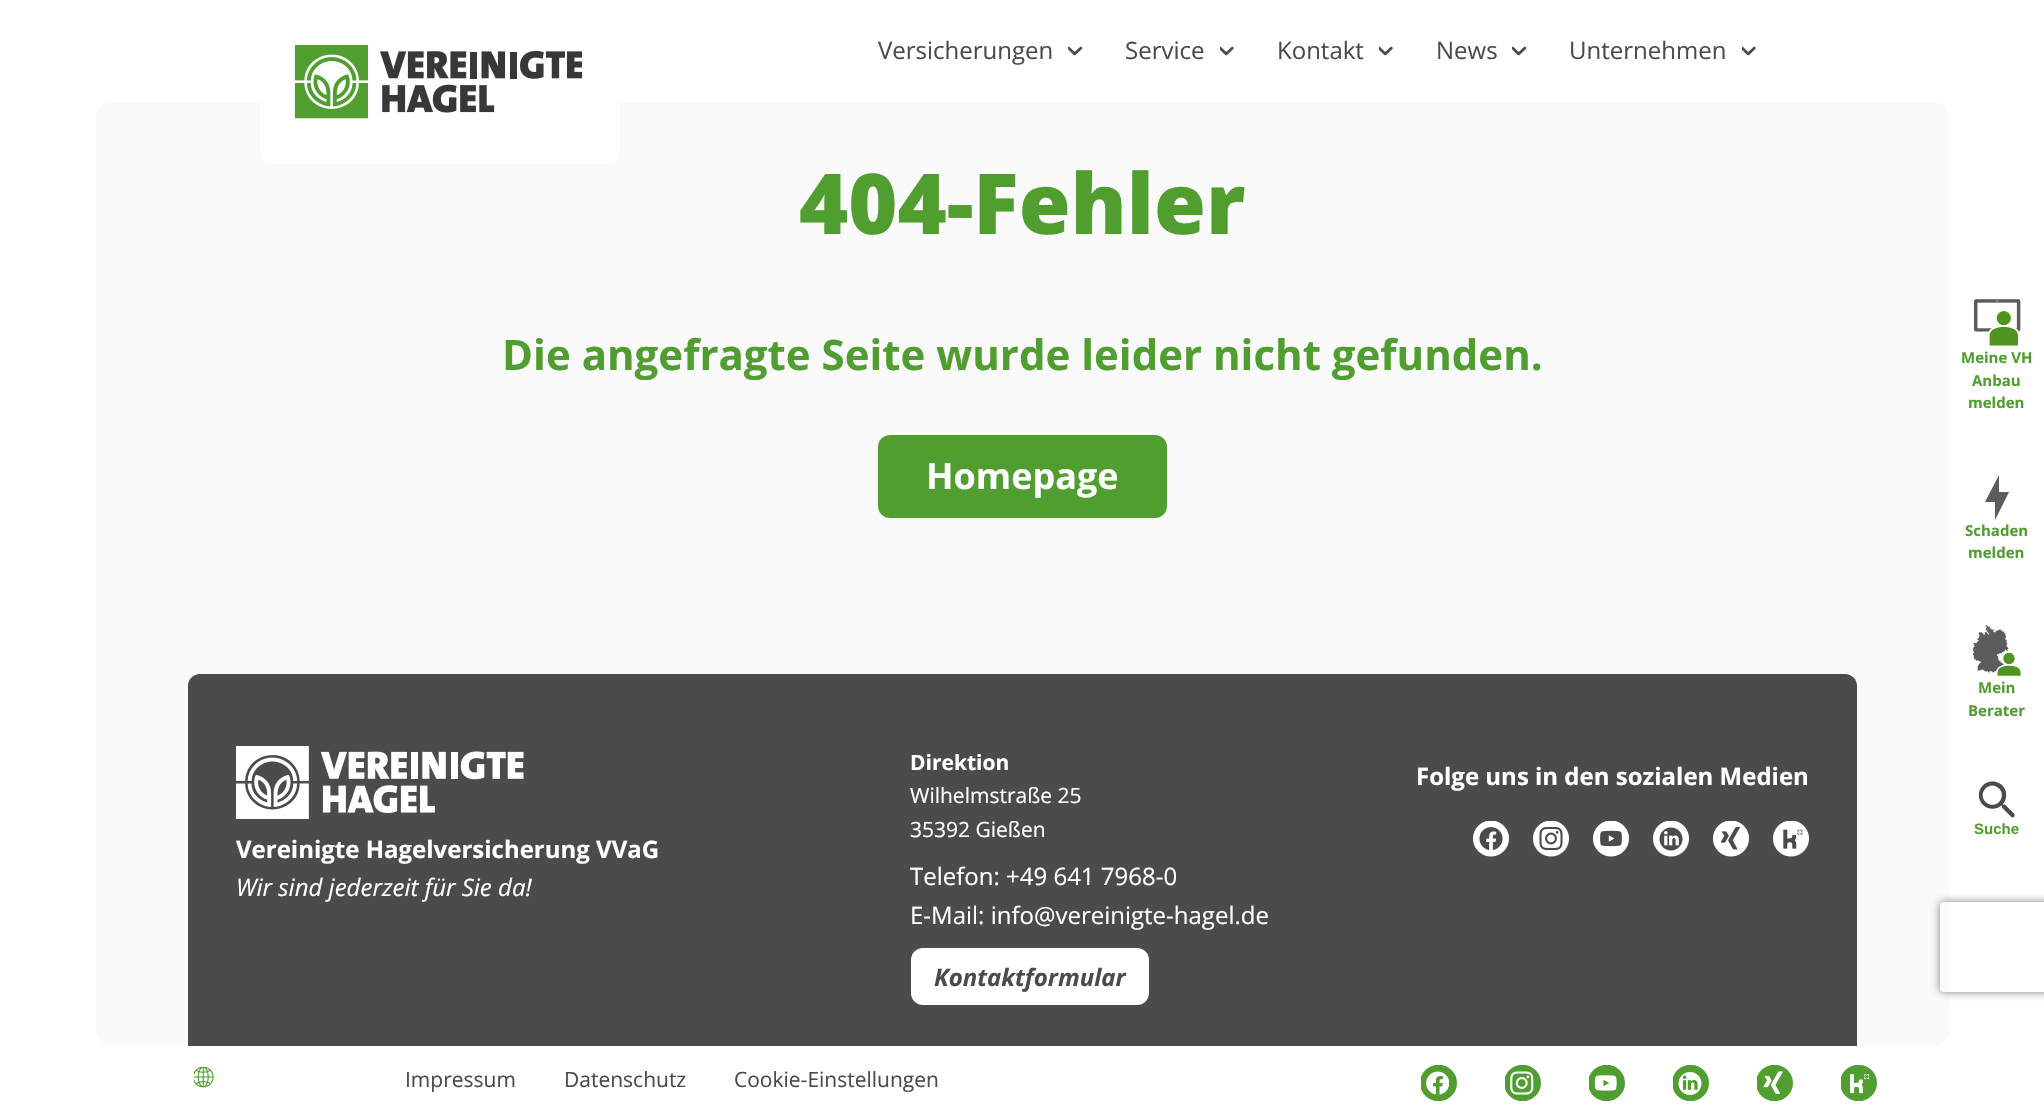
#include "include/core/SkBlurTypes.h"
#include "include/core/SkCanvas.h"
#include "include/core/SkData.h"
#include "include/core/SkFont.h"
#include "include/core/SkFontMgr.h"
#include "include/core/SkImage.h"
#include "include/core/SkMaskFilter.h"
#include "include/core/SkPaint.h"
#include "include/core/SkPathBuilder.h"
#include "include/core/SkTextBlob.h"
#include "include/effects/SkDashPathEffect.h"
#include "include/effects/SkGradientShader.h"
#include "include/utils/SkParsePath.h"

extern sk_sp<SkFontMgr> fontMgr;

void draw(SkCanvas* canvas) {
    SkPaint p;
    p.setAntiAlias(true);
    auto font = [&](const char* family, int weight, float size, bool italic = false) {
        SkFontStyle style(weight, SkFontStyle::kNormal_Width,
            italic ? SkFontStyle::kItalic_Slant : SkFontStyle::kUpright_Slant);
        SkFont result(fontMgr->matchFamilyStyle(family, style), size);
        result.setSubpixel(true);
        return result;
    };
    auto drawPhoto = [&](const char* path, float l, float t, float r, float b) {
        auto image = SkImages::DeferredFromEncodedData(SkData::MakeFromFileName(path));
        canvas->drawImageRect(image, SkRect::MakeLTRB(l, t, r, b), SkSamplingOptions());
    };
    canvas->clear(0xFFFAFAFA);
    p.setColor(0xFF509E2F);
    canvas->drawRoundRect(SkRect::MakeLTRB(878, 435, 1167, 518), 12, 12, p);
    p.setColor(0xFF4B4B4B);
    canvas->drawRoundRect(SkRect::MakeLTRB(188, 674, 1857, 1070), 12, 12, p);
    p.setColor(0xFFFFFFFF);
    canvas->drawRoundRect(SkRect::MakeLTRB(911, 948, 1149, 1005), 12, 12, p);
    drawPhoto("media/7.png", 1473, 821, 1509, 857);
    drawPhoto("media/8.png", 1533, 821, 1569, 857);
    drawPhoto("media/9.png", 1593, 821, 1629, 857);
    drawPhoto("media/10.png", 1653, 821, 1689, 857);
    drawPhoto("media/11.png", 1713, 821, 1749, 857);
    drawPhoto("media/12.png", 1773, 821, 1809, 857);
    drawPhoto("media/13.png", 236, 746, 524, 819);
    p.setStyle(SkPaint::kStroke_Style);
    p.setStrokeWidth(120);
    canvas->drawRoundRect(SkRect::MakeLTRB(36, 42, 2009, 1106), 75, 75, p);
    p.setStyle(SkPaint::kFill_Style);
    canvas->drawRect(SkRect::MakeLTRB(0, 0, 43, 1111), p);
    canvas->drawRect(SkRect::MakeLTRB(2002, 0, 2044, 1111), p);
    canvas->drawRoundRect(SkRect::MakeLTRB(260, 0, 620, 164), 12, 12, p);
    drawPhoto("media/1.png", 294, 45, 582, 119);
    auto font1 = font("Open Sans", 400, 24);
    p.setColor(0xFF4B4B4B);
    canvas->drawString("Versicherungen", 878, 59, font1, p);
    drawPhoto("media/2.png", 1068, 46, 1083, 56);
    canvas->drawString("Service", 1125, 59, font1, p);
    drawPhoto("media/3.png", 1220, 46, 1234, 56);
    canvas->drawString("Kontakt", 1277, 59, font1, p);
    drawPhoto("media/3.png", 1379, 46, 1393, 56);
    canvas->drawString("News", 1436, 59, font1, p);
    drawPhoto("media/2.png", 1512, 46, 1527, 56);
    canvas->drawString("Unternehmen", 1569, 59, font1, p);
    drawPhoto("media/3.png", 1742, 46, 1756, 56);
    auto font2 = font("Open Sans", 800, 84);
    p.setColor(0xFF509E2F);
    canvas->drawString("404-Fehler", 799, 234, font2, p);
    auto font3 = font("Open Sans", 700, 42);
    canvas->drawString("Die angefragte Seite wurde leider nicht gefunden.", 502, 370, font3, p);
    auto font4 = font("Open Sans", 700, 36);
    p.setColor(0xFFFFFFFF);
    canvas->drawString("Homepage", 926, 489, font4, p);
    drawPhoto("media/4.png", 1974, 299, 2021, 346);
    auto font5 = font("Open Sans", 700, 15);
    p.setColor(0xFF509E2F);
    {
        const struct { const char* s; float x, y; } items[] = {
            {"Meine VH", 1961, 363},
            {"Anbau", 1972, 386},
            {"melden", 1968, 408},
        };
        for (auto [s, x, y] : items) {
            canvas->drawString(s, x, y, font5, p);
        }
    }
    p.setColor(0xFF5D5C5C);
    canvas->drawPath(SkPathBuilder().moveTo(1999, 475).lineTo(1985, 502).lineTo(1995, 502).lineTo(1995, 520).lineTo(2009, 492).lineTo(1999, 492).close().detach(), p);
    p.setColor(0xFF509E2F);
    canvas->drawString("Schaden", 1965, 536, font5, p);
    canvas->drawString("melden", 1968, 558, font5, p);
    drawPhoto("media/5.png", 1973, 625, 2021, 676);
    canvas->drawString("Mein", 1978, 693, font5, p);
    canvas->drawString("Berater", 1968, 716, font5, p);
    drawPhoto("media/6.png", 1978, 781, 2015, 818);
    auto font6 = font("Liberation Sans", 700, 15);
    canvas->drawString("Suche", 1974, 834, font6, p);
    auto font7 = font("Open Sans", 700, 21);
    p.setColor(0xFFFFFFFF);
    canvas->drawString("Direktion", 910, 770, font7, p);
    auto font8 = font("Open Sans", 400, 21);
    canvas->drawString("Wilhelmstraße 25", 910, 803, font8, p);
    canvas->drawString("35392 Gießen", 910, 837, font8, p);
    canvas->drawString("Telefon: +49 641 7968-0", 910, 885, font1, p);
    canvas->drawString("E-Mail: info@vereinigte-hagel.de", 910, 924, font1, p);
    auto font9 = font("Open Sans", 700, 24, true);
    p.setColor(0xFF4B4B4B);
    canvas->drawString("Kontaktformular", 934, 986, font9, p);
    auto font10 = font("Open Sans", 700, 24);
    p.setColor(0xFFFFFFFF);
    canvas->drawString("Folge uns in den sozialen Medien", 1416, 785, font10, p);
    canvas->drawString("Vereinigte Hagelversicherung VVaG", 236, 858, font10, p);
    auto font11 = font("Open Sans", 400, 24, true);
    canvas->drawString("Wir sind jederzeit für Sie da!", 236, 896, font11, p);
    drawPhoto("media/14.png", 194, 1067, 214, 1088);
    p.setColor(0xFF4B4B4B);
    {
        const struct { const char* s; float x, y; } items[] = {
            {"Impressum", 405, 1087},
            {"Datenschutz", 564, 1087},
            {"Cookie-Einstellungen", 734, 1087},
        };
        for (auto [s, x, y] : items) {
            canvas->drawString(s, x, y, font8, p);
        }
    }
    p.setColor(0xFF509E2F);
    canvas->drawCircle(1439, 1083, 18, p);
    drawPhoto("media/15.png", 1421, 1065, 1449, 1101);
    canvas->drawCircle(1523, 1083, 18, p);
    drawPhoto("media/16.png", 1505, 1065, 1534, 1101);
    canvas->drawCircle(1607, 1083, 18, p);
    drawPhoto("media/17.png", 1589, 1065, 1617, 1101);
    canvas->drawCircle(1691, 1083, 18, p);
    drawPhoto("media/18.png", 1673, 1065, 1702, 1101);
    canvas->drawCircle(1775, 1083, 18, p);
    drawPhoto("media/19.png", 1757, 1065, 1784, 1101);
    canvas->drawCircle(1859, 1083, 18, p);
    drawPhoto("media/20.png", 1841, 1065, 1870, 1101);
    canvas->save();
    canvas->clipPath(SkPathBuilder(SkPathFillType::kEvenOdd).moveTo(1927, 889).lineTo(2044, 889).lineTo(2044, 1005).lineTo(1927, 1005).close().moveTo(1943, 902).lineTo(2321, 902).cubicTo(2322.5f, 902, 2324, 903.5f, 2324, 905).lineTo(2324, 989).cubicTo(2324, 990.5f, 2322.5f, 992, 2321, 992).lineTo(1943, 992).cubicTo(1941.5f, 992, 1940, 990.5f, 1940, 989).lineTo(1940, 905).cubicTo(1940, 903.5f, 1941.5f, 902, 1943, 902).close().detach(), true);
    p.setColor(0xFF808080);
    p.setMaskFilter(SkMaskFilter::MakeBlur(kNormal_SkBlurStyle, 4));
    canvas->drawRoundRect(SkRect::MakeLTRB(1940, 902, 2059, 992), 3, 3, p);
    p.setMaskFilter(nullptr);
    canvas->restore();
}
